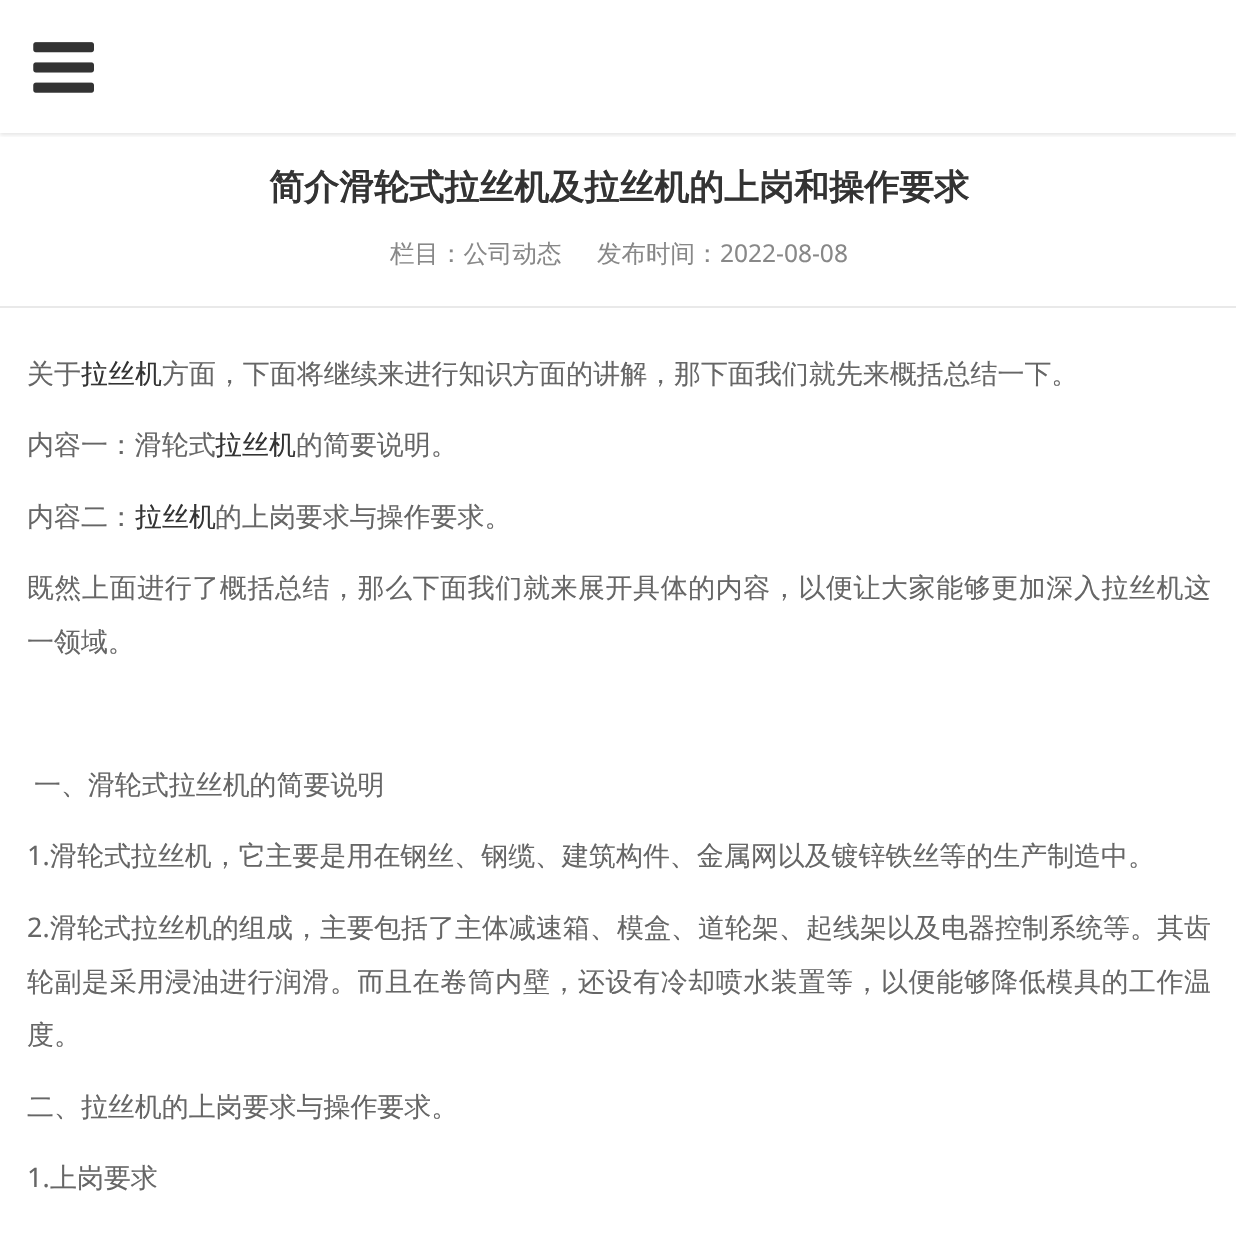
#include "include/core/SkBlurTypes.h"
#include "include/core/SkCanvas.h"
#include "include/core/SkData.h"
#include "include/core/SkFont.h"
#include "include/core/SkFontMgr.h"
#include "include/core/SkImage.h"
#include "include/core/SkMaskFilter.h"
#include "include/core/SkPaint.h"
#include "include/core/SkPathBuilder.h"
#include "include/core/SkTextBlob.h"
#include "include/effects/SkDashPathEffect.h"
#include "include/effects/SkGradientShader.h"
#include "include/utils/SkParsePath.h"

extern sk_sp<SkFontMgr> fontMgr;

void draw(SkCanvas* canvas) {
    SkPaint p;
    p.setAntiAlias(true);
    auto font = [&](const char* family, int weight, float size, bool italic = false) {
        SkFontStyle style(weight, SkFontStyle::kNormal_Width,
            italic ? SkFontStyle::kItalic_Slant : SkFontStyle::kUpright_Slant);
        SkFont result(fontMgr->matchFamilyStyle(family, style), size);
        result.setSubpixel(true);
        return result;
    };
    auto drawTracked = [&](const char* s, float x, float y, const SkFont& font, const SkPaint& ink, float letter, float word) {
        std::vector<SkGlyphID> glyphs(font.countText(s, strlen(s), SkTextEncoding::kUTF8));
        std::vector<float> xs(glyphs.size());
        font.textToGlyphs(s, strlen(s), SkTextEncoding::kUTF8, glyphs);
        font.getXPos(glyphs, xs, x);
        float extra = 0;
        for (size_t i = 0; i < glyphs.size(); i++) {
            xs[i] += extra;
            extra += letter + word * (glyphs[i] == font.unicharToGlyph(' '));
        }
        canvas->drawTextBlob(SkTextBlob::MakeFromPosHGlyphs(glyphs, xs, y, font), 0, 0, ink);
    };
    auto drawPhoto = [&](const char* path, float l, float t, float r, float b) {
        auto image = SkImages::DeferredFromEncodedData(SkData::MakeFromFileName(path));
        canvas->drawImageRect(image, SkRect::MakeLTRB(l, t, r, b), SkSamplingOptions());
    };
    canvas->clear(0xFFFFFFFF);
    canvas->save();
    canvas->clipRect(SkRect::MakeLTRB(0, 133, 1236, 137));
    p.setColor(0x1A000000);
    p.setMaskFilter(SkMaskFilter::MakeBlur(kNormal_SkBlurStyle, 2));
    canvas->drawRect(SkRect::MakeLTRB(0, 2, 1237, 135), p);
    p.setMaskFilter(nullptr);
    canvas->restore();
    drawPhoto("media/1.png", 33, 42, 94, 93);
    auto font1 = font("WenQuanYi Zen Hei", 700, 35);
    p.setColor(0xFF333333);
    canvas->drawString("简介滑轮式拉丝机及拉丝机的上岗和操作要求", 269, 199, font1, p);
    auto font2 = font("WenQuanYi Zen Hei", 500, 24.5f);
    p.setColor(0xFF888888);
    canvas->drawString("栏目：公司动态", 390, 262, font2, p);
    canvas->drawString("发布时间：", 597, 262, font2, p);
    auto font3 = font("Noto Sans", 400, 24.5f);
    canvas->drawString("2022-08-08", 720, 262, font3, p);
    p.setColor(0xFFE9E9E9);
    canvas->drawRect(SkRect::MakeLTRB(0, 306, 1236, 308), p);
    auto font4 = font("WenQuanYi Zen Hei", 500, 26.95f);
    p.setColor(0xFF666666);
    canvas->drawString("关于", 27, 383, font4, p);
    p.setColor(0xFF333333);
    canvas->drawString("拉丝机", 81, 383, font4, p);
    p.setColor(0xFF666666);
    canvas->drawString("方面，下面将继续来进行知识方面的讲解，那下面我们就先来概括总结一下。", 162, 383, font4, p);
    canvas->drawString("内容一：滑轮式", 27, 454, font4, p);
    p.setColor(0xFF333333);
    canvas->drawString("拉丝机", 215, 454, font4, p);
    p.setColor(0xFF666666);
    canvas->drawString("的简要说明。", 296, 454, font4, p);
    canvas->drawString("内容二：", 27, 526, font4, p);
    p.setColor(0xFF333333);
    canvas->drawString("拉丝机", 135, 526, font4, p);
    p.setColor(0xFF666666);
    canvas->drawString("的上岗要求与操作要求。", 215, 526, font4, p);
    drawTracked("既然上面进行了概括总结，那么下面我们就来展开具体的内容，以便让大家能够更加深入拉丝机这", 27, 597, font4, p, 0.6f, 0);
    canvas->drawString("一领域。", 27, 651, font4, p);
    canvas->drawString("一、滑轮式拉丝机的简要说明", 34, 794, font4, p);
    auto font5 = font("Noto Sans", 400, 26.95f);
    canvas->drawString("1.", 27, 865, font5, p);
    canvas->drawString("滑轮式拉丝机，它主要是用在钢丝、钢缆、建筑构件、金属网以及镀锌铁丝等的生产制造中。", 50, 865, font4, p);
    drawTracked("2.", 27, 937, font5, p, 0.05f, 0);
    drawTracked("滑轮式拉丝机的组成，主要包括了主体减速箱、模盒、道轮架、起线架以及电器控制系统等。其齿", 50, 937, font4, p, 0.05f, 0);
    drawTracked("轮副是采用浸油进行润滑。而且在卷筒内壁，还设有冷却喷水装置等，以便能够降低模具的工作温", 27, 991, font4, p, 0.6f, 0);
    canvas->drawString("度。", 27, 1044, font4, p);
    canvas->drawString("二、拉丝机的上岗要求与操作要求。", 27, 1116, font4, p);
    canvas->drawString("1.", 27, 1187, font5, p);
    canvas->drawString("上岗要求", 50, 1187, font4, p);
}
